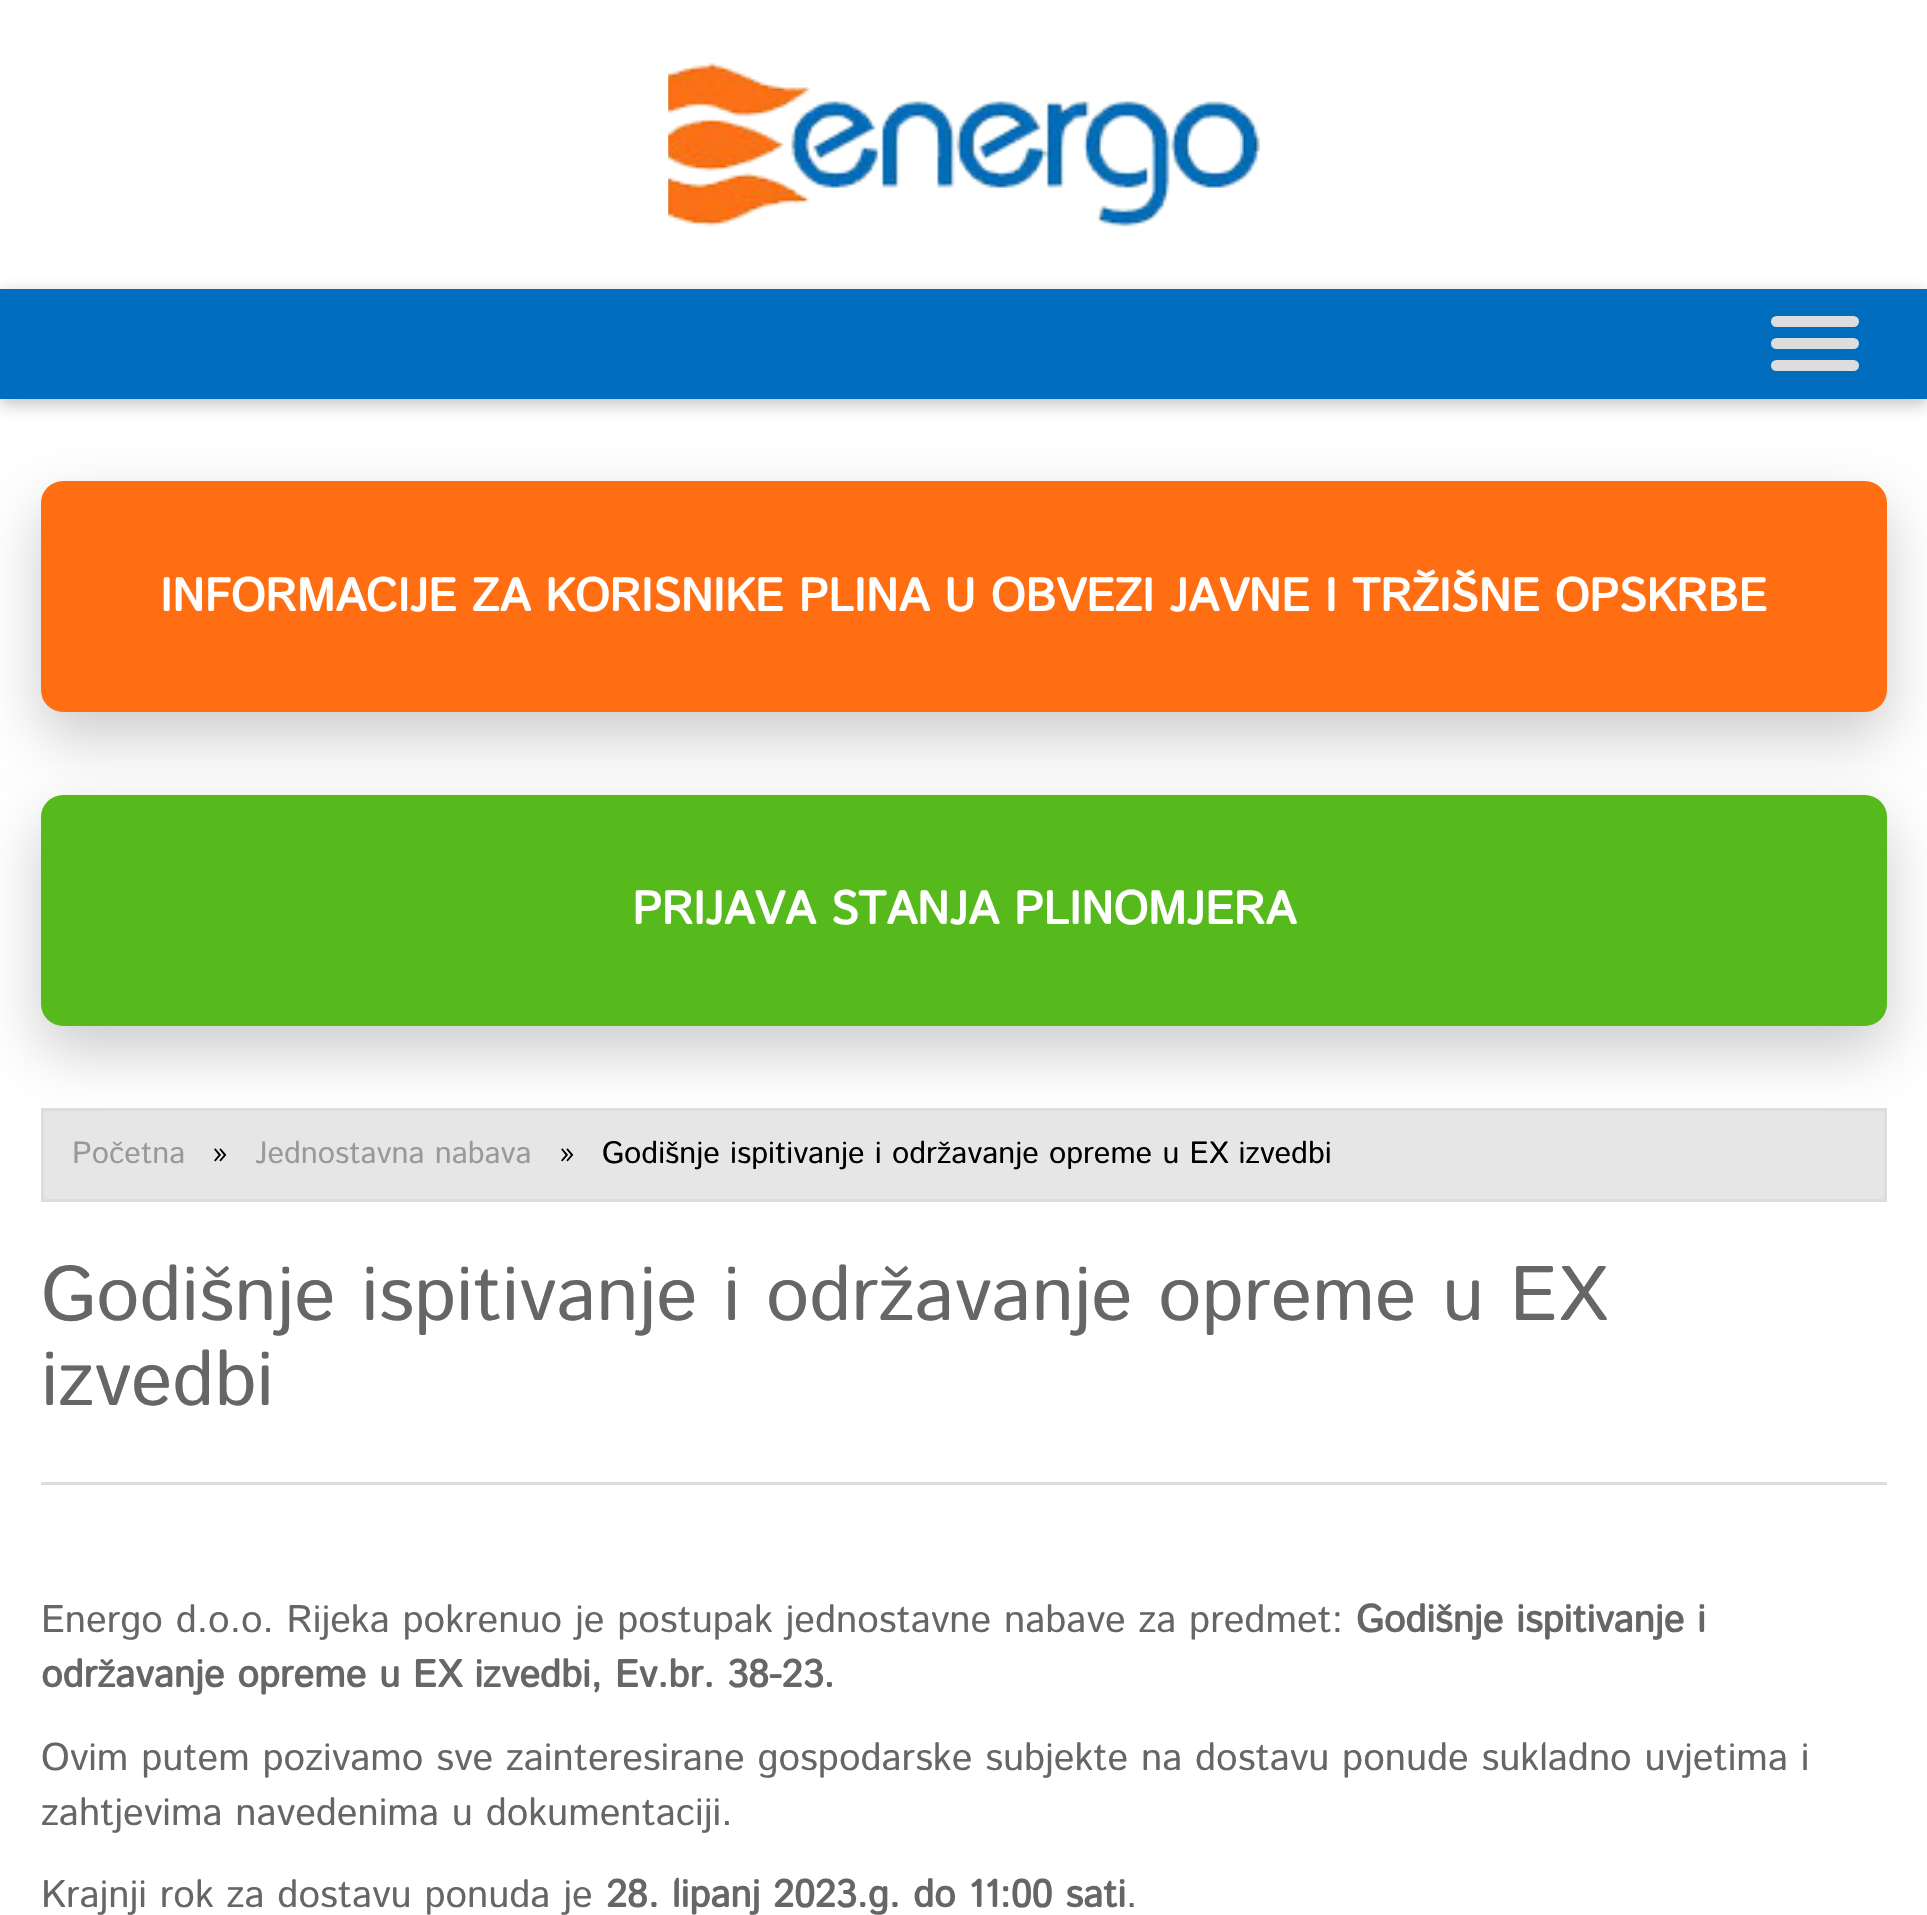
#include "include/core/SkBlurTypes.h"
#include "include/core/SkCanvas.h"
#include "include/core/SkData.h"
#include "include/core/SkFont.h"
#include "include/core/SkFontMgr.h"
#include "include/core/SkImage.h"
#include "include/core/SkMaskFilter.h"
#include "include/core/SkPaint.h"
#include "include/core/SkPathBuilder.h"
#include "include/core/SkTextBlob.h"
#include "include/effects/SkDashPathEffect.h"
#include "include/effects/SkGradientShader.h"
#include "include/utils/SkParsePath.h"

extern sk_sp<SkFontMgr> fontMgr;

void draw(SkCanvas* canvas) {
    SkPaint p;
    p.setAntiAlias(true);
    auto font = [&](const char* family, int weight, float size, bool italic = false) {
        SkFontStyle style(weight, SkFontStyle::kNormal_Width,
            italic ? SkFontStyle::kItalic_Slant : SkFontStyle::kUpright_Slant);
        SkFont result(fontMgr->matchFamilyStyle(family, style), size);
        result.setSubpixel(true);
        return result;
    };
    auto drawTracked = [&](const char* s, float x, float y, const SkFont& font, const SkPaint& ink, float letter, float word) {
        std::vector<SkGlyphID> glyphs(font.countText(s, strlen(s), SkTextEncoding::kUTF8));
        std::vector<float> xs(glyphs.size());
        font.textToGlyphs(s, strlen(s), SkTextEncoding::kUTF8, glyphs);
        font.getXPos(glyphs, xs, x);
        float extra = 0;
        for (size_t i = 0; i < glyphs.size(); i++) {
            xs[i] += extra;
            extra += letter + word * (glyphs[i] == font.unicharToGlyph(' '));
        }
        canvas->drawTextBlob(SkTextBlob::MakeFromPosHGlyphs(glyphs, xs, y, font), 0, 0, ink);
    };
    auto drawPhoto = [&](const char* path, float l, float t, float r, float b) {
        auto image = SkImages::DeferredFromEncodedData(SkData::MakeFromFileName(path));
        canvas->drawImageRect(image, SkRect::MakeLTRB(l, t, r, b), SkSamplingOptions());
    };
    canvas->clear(0xFFFFFFFF);
    drawPhoto("media/1.png", 668, 62, 1260, 227);
    p.setColor(0x80808080);
    p.setMaskFilter(SkMaskFilter::MakeBlur(kNormal_SkBlurStyle, 8));
    canvas->drawRect(SkRect::MakeLTRB(0, 294, 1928, 404), p);
    p.setMaskFilter(nullptr);
    p.setColor(0xFF006DBE);
    canvas->drawRect(SkRect::MakeLTRB(0, 289, 1927, 399), p);
    p.setColor(0xFFDDDDDD);
    canvas->drawRoundRect(SkRect::MakeLTRB(1771, 316, 1859, 327), 5.5f, 5.5f, p);
    canvas->drawRoundRect(SkRect::MakeLTRB(1771, 338, 1859, 349), 5.5f, 5.5f, p);
    canvas->drawRoundRect(SkRect::MakeLTRB(1771, 360, 1859, 371), 5.5f, 5.5f, p);
    p.setColor(0x33000000);
    p.setMaskFilter(SkMaskFilter::MakeBlur(kNormal_SkBlurStyle, 29));
    canvas->drawRoundRect(SkRect::MakeLTRB(41, 506, 1887, 737), 22, 22, p);
    p.setMaskFilter(nullptr);
    p.setColor(0xFFFF6E12);
    canvas->drawRoundRect(SkRect::MakeLTRB(41, 481, 1887, 712), 22, 22, p);
    auto font1 = font("Istok Web", 700, 46.2f);
    p.setColor(0xFFFFFFFF);
    drawTracked("INFORMACIJE ZA KORISNIKE PLINA U OBVEZI JAVNE I TRŽIŠNE OPSKRBE", 160, 611, font1, p, 0, -0.25f);
    p.setColor(0x33000000);
    p.setMaskFilter(SkMaskFilter::MakeBlur(kNormal_SkBlurStyle, 29));
    canvas->drawRoundRect(SkRect::MakeLTRB(41, 820, 1887, 1051), 22, 22, p);
    p.setMaskFilter(nullptr);
    p.setColor(0xFF56B91C);
    canvas->drawRoundRect(SkRect::MakeLTRB(41, 795, 1887, 1026), 22, 22, p);
    p.setColor(0xFFFFFFFF);
    canvas->drawString("PRIJAVA STANJA PLINOMJERA", 632, 924, font1, p);
    p.setColor(0xFFE6E6E6);
    canvas->drawRect(SkRect::MakeLTRB(42.5f, 1109.5f, 1885.5f, 1200.5f), p);
    p.setStyle(SkPaint::kStroke_Style);
    p.setStrokeWidth(3);
    p.setColor(0xFFDDDDDD);
    canvas->drawRect(SkRect::MakeLTRB(42.5f, 1109.5f, 1885.5f, 1200.5f), p);
    auto font2 = font("Istok Web", 400, 30.8f);
    p.setStyle(SkPaint::kFill_Style);
    p.setColor(0xFF999999);
    canvas->drawString("Početna", 72, 1163, font2, p);
    p.setColor(0xFF000000);
    canvas->drawString("»", 212, 1163, font2, p);
    p.setColor(0xFF999999);
    canvas->drawString("Jednostavna nabava", 255, 1163, font2, p);
    p.setColor(0xFF000000);
    canvas->drawString("»", 559, 1163, font2, p);
    canvas->drawString("Godišnje ispitivanje i održavanje opreme u EX izvedbi", 602, 1163, font2, p);
    p.setColor(0xFFDDDDDD);
    canvas->drawRect(SkRect::MakeLTRB(41, 1482, 1887, 1485), p);
    auto font3 = font("Istok Web", 400, 77);
    p.setColor(0xFF666666);
    canvas->drawString("Godišnje ispitivanje i održavanje opreme u EX", 41, 1320, font3, p);
    canvas->drawString("izvedbi", 41, 1405, font3, p);
    auto font4 = font("Istok Web", 400, 38.5f);
    canvas->drawString("Energo d.o.o. Rijeka pokrenuo je postupak jednostavne nabave za predmet:", 41, 1632, font4, p);
    auto font5 = font("Istok Web", 700, 38.5f);
    canvas->drawString("Godišnje ispitivanje i", 1356, 1632, font5, p);
    canvas->drawString("održavanje opreme u EX izvedbi, Ev.br. 38-23.", 41, 1687, font5, p);
    {
        const struct { const char* s; float x, y; } items[] = {
            {"Ovim putem pozivamo sve zainteresirane gospodarske subjekte na dostavu ponude sukladno uvjetima i", 41, 1770},
            {"zahtjevima navedenima u dokumentaciji.", 41, 1825},
            {"Krajnji rok za dostavu ponuda je", 41, 1907},
        };
        for (auto [s, x, y] : items) {
            canvas->drawString(s, x, y, font4, p);
        }
    }
    canvas->drawString("28. lipanj 2023.g. do 11:00 sati", 606, 1907, font5, p);
    canvas->drawString(".", 1126, 1907, font4, p);
}
